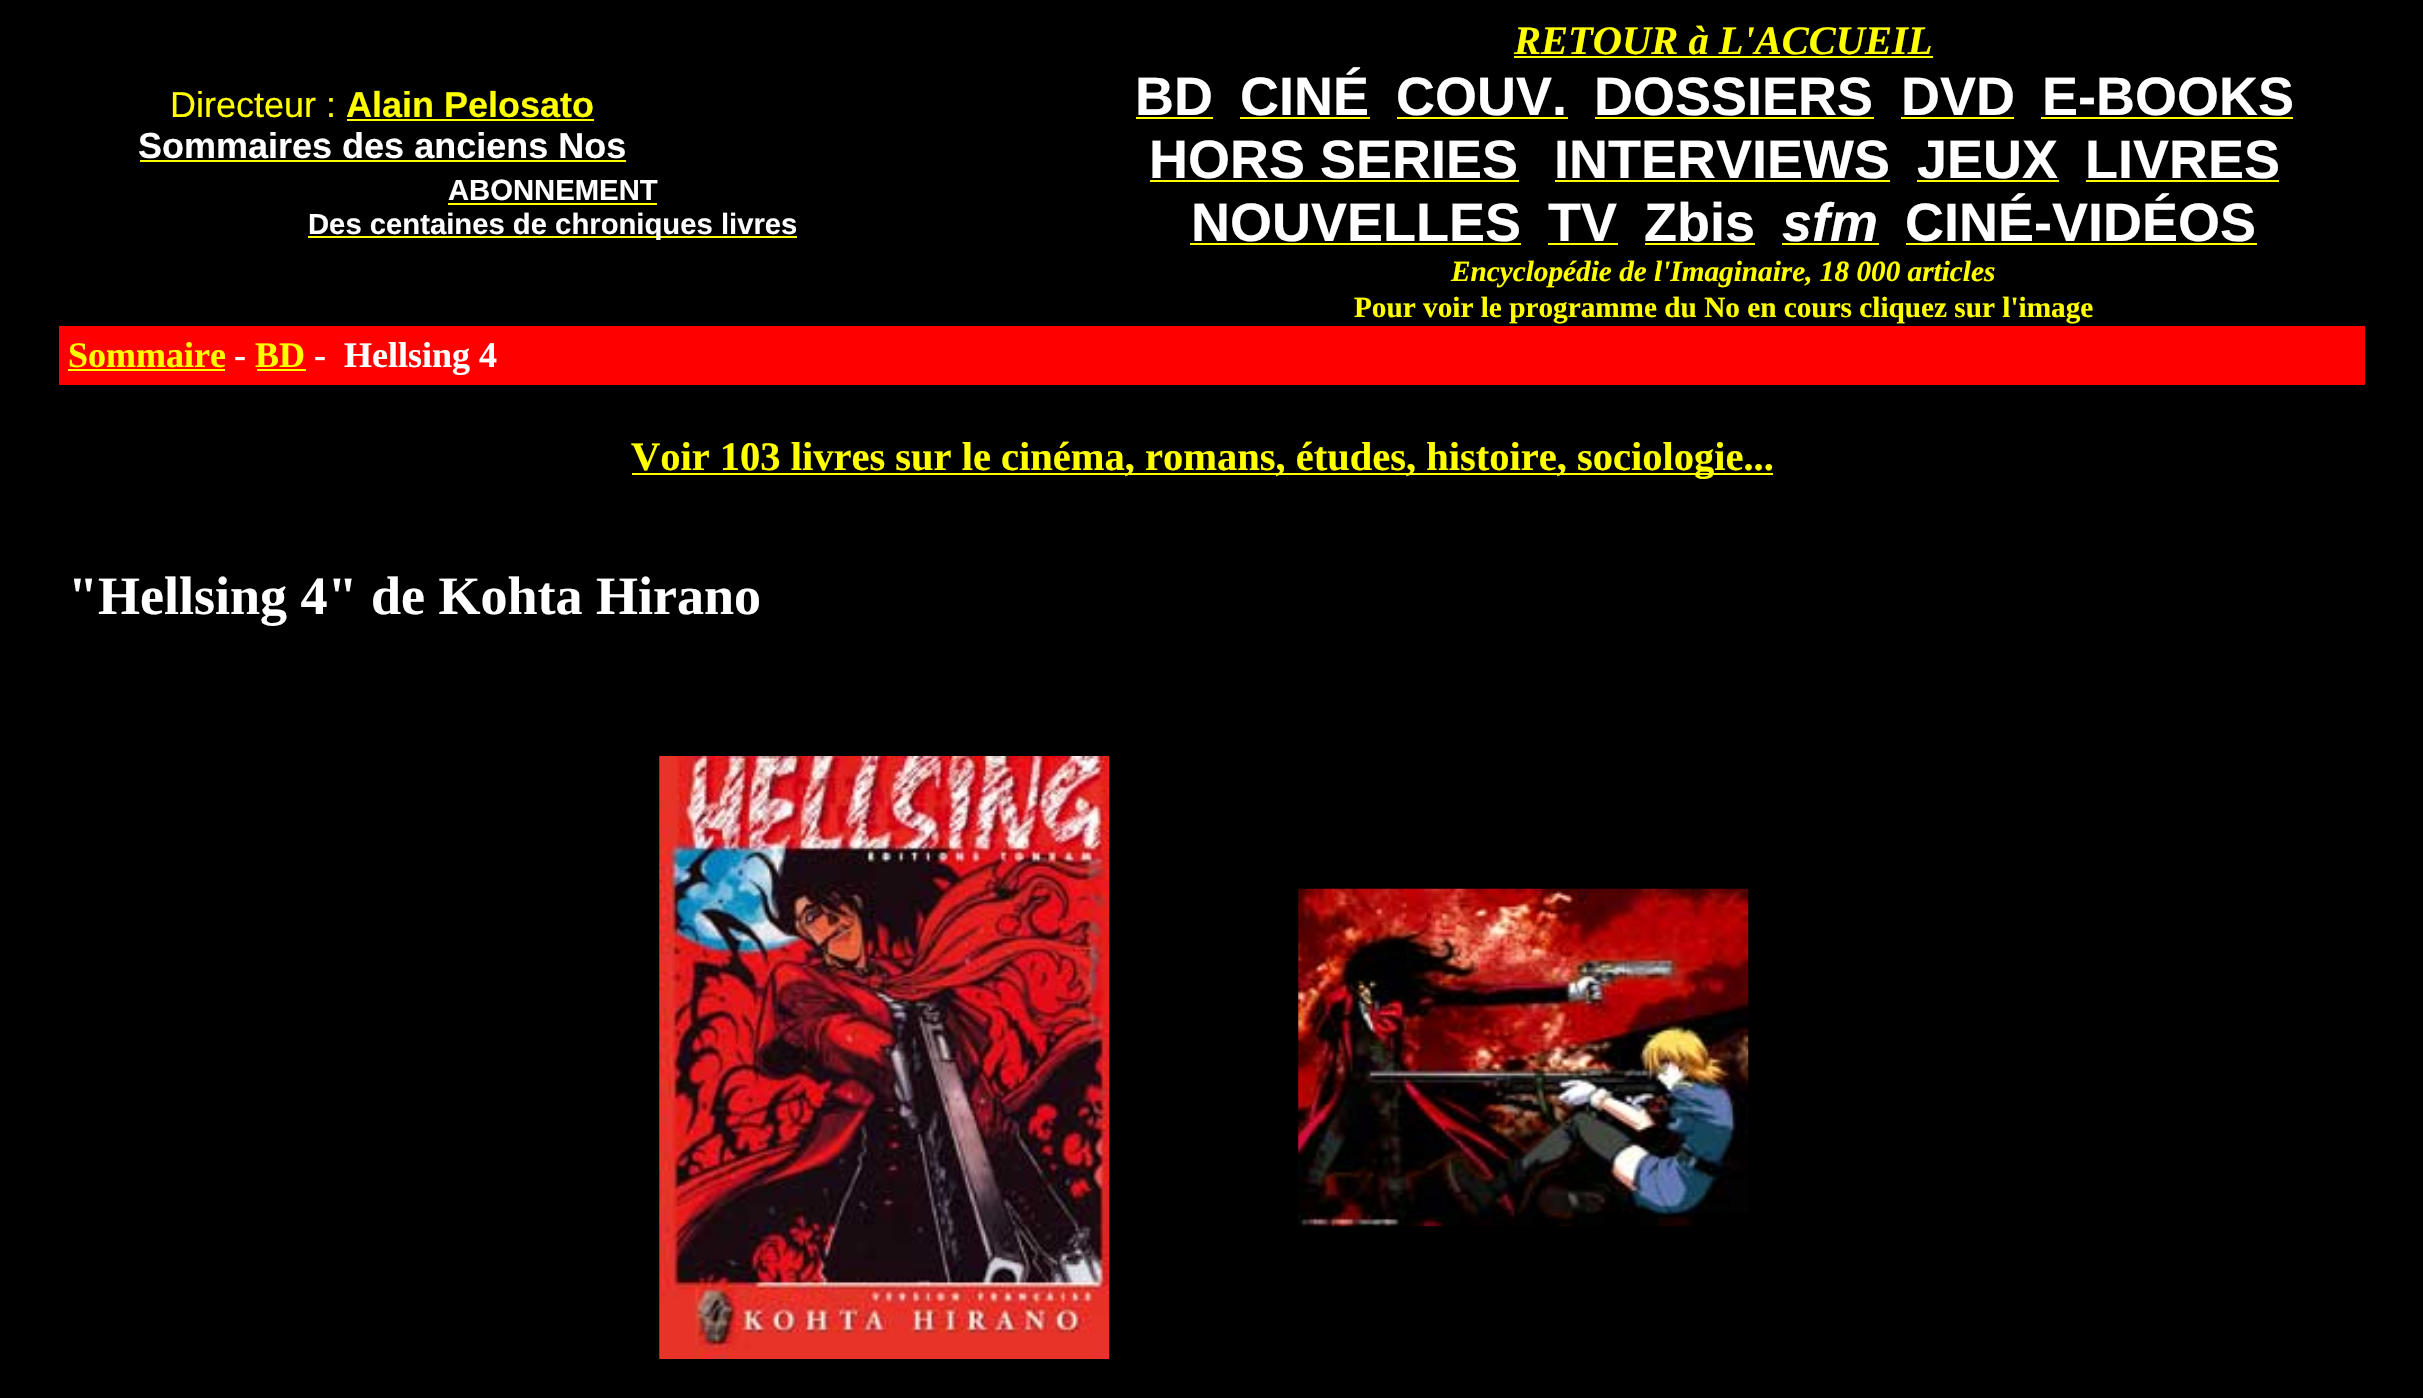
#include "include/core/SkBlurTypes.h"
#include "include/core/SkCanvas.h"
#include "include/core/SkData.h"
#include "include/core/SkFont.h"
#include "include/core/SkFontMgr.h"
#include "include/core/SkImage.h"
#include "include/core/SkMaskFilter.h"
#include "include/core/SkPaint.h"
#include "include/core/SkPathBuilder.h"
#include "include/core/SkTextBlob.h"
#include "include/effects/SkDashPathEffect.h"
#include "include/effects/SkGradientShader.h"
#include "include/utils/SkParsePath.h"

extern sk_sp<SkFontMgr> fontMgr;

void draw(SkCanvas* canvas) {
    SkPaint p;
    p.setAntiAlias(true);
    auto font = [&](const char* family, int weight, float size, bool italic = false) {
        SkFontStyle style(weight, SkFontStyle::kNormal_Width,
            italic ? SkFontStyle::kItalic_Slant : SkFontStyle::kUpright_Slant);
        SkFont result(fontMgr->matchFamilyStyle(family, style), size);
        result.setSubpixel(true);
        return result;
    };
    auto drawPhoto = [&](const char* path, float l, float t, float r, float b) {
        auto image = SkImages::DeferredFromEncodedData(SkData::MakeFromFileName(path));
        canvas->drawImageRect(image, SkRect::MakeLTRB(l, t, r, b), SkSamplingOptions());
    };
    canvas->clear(0xFF000000);
    auto font1 = font("Liberation Sans", 400, 36);
    p.setColor(0xFFFFFF00);
    canvas->drawString("Directeur :", 170, 117, font1, p);
    auto font2 = font("Liberation Sans", 700, 36);
    canvas->drawString("Alain Pelosato", 346, 117, font2, p);
    canvas->drawRect(SkRect::MakeLTRB(347, 119, 594, 121), p);
    p.setColor(0xFFFFFFFF);
    canvas->drawString("Sommaires des anciens Nos", 138, 158, font2, p);
    p.setColor(0xFFFFFF00);
    canvas->drawRect(SkRect::MakeLTRB(140, 160, 626, 162), p);
    auto font3 = font("Liberation Sans", 700, 29.25f);
    p.setColor(0xFFFFFFFF);
    canvas->drawString("ABONNEMENT", 448, 200, font3, p);
    p.setColor(0xFFFFFF00);
    canvas->drawRect(SkRect::MakeLTRB(448, 203, 657, 205), p);
    canvas->drawRect(SkRect::MakeLTRB(308, 236, 797, 238), p);
    p.setColor(0xFFFFFFFF);
    canvas->drawString("Des centaines de chroniques livres", 308, 234, font3, p);
    auto font4 = font("Liberation Serif", 700, 40.5f, true);
    p.setColor(0xFFFFFF00);
    canvas->drawString("RETOUR à L'ACCUEIL", 1514, 54, font4, p);
    canvas->drawRect(SkRect::MakeLTRB(1514, 56, 1933, 58), p);
    auto font5 = font("Liberation Sans", 700, 54);
    p.setColor(0xFFFFFFFF);
    canvas->drawString("BD", 1135, 115, font5, p);
    p.setColor(0xFFFFFF00);
    canvas->drawRect(SkRect::MakeLTRB(1136, 117, 1213, 119), p);
    p.setColor(0xFFFFFFFF);
    canvas->drawString("CINÉ", 1240, 115, font5, p);
    p.setColor(0xFFFFFF00);
    canvas->drawRect(SkRect::MakeLTRB(1240, 117, 1370, 119), p);
    p.setColor(0xFFFFFFFF);
    canvas->drawString("COUV.", 1396, 115, font5, p);
    p.setColor(0xFFFFFF00);
    canvas->drawRect(SkRect::MakeLTRB(1397, 117, 1568, 119), p);
    p.setColor(0xFFFFFFFF);
    canvas->drawString("DOSSIERS", 1594, 115, font5, p);
    p.setColor(0xFFFFFF00);
    canvas->drawRect(SkRect::MakeLTRB(1595, 117, 1874, 119), p);
    p.setColor(0xFFFFFFFF);
    canvas->drawString("DVD", 1901, 115, font5, p);
    p.setColor(0xFFFFFF00);
    canvas->drawRect(SkRect::MakeLTRB(1901, 117, 2014, 119), p);
    p.setColor(0xFFFFFFFF);
    canvas->drawString("E-BOOKS", 2042, 115, font5, p);
    p.setColor(0xFFFFFF00);
    canvas->drawRect(SkRect::MakeLTRB(2041, 117, 2293, 119), p);
    p.setColor(0xFFFFFFFF);
    canvas->drawString("HORS SERIES", 1149, 178, font5, p);
    p.setColor(0xFFFFFF00);
    canvas->drawRect(SkRect::MakeLTRB(1150, 180, 1519, 182), p);
    p.setColor(0xFFFFFFFF);
    canvas->drawString("INTERVIEWS", 1554, 178, font5, p);
    p.setColor(0xFFFFFF00);
    canvas->drawRect(SkRect::MakeLTRB(1555, 180, 1890, 182), p);
    p.setColor(0xFFFFFFFF);
    canvas->drawString("JEUX", 1917, 178, font5, p);
    p.setColor(0xFFFFFF00);
    canvas->drawRect(SkRect::MakeLTRB(1917, 180, 2059, 182), p);
    p.setColor(0xFFFFFFFF);
    canvas->drawString("LIVRES", 2085, 178, font5, p);
    p.setColor(0xFFFFFF00);
    canvas->drawRect(SkRect::MakeLTRB(2086, 180, 2279, 182), p);
    p.setColor(0xFFFFFFFF);
    canvas->drawString("NOUVELLES", 1191, 241, font5, p);
    p.setColor(0xFFFFFF00);
    canvas->drawRect(SkRect::MakeLTRB(1190, 243, 1521, 245), p);
    p.setColor(0xFFFFFFFF);
    canvas->drawString("TV", 1548, 241, font5, p);
    p.setColor(0xFFFFFF00);
    canvas->drawRect(SkRect::MakeLTRB(1548, 243, 1618, 245), p);
    p.setColor(0xFFFFFFFF);
    canvas->drawString("Zbis", 1644, 241, font5, p);
    p.setColor(0xFFFFFF00);
    canvas->drawRect(SkRect::MakeLTRB(1645, 243, 1755, 245), p);
    auto font6 = font("Liberation Sans", 700, 54, true);
    p.setColor(0xFFFFFFFF);
    canvas->drawString("sfm", 1782, 241, font6, p);
    p.setColor(0xFFFFFF00);
    canvas->drawRect(SkRect::MakeLTRB(1782, 243, 1879, 245), p);
    p.setColor(0xFFFFFFFF);
    canvas->drawString("CINÉ-VIDÉOS", 1905, 241, font5, p);
    p.setColor(0xFFFFFF00);
    canvas->drawRect(SkRect::MakeLTRB(1906, 243, 2257, 245), p);
    auto font7 = font("Liberation Serif", 700, 29.25f, true);
    canvas->drawString("Encyclopédie de l'Imaginaire, 18 000 articles", 1451, 281, font7, p);
    auto font8 = font("Liberation Serif", 700, 29.25f);
    canvas->drawString("Pour voir le programme du No en cours cliquez sur l'image", 1354, 317, font8, p);
    p.setColor(0xFFFF0000);
    canvas->drawRect(SkRect::MakeLTRB(59, 326, 2365, 385), p);
    auto font9 = font("Liberation Serif", 700, 36);
    p.setColor(0xFFFFFF00);
    canvas->drawString("Sommaire", 68, 367, font9, p);
    canvas->drawRect(SkRect::MakeLTRB(68, 369, 225, 371), p);
    p.setColor(0xFFFFFFFF);
    canvas->drawString("-", 234, 367, font9, p);
    p.setColor(0xFFFFFF00);
    canvas->drawString("BD", 255, 367, font9, p);
    canvas->drawRect(SkRect::MakeLTRB(257, 369, 306, 371), p);
    p.setColor(0xFFFFFFFF);
    canvas->drawString("-", 314, 367, font9, p);
    canvas->drawString("Hellsing 4", 344, 367, font9, p);
    p.setColor(0xFFFFFF00);
    canvas->drawRect(SkRect::MakeLTRB(632, 473, 1773, 475), p);
    auto font10 = font("Liberation Serif", 700, 40.5f);
    canvas->drawString("Voir 103 livres sur le cinéma, romans, études, histoire, sociologie...", 631, 470, font10, p);
    auto font11 = font("Liberation Serif", 700, 54);
    p.setColor(0xFFFFFFFF);
    canvas->drawString("\"Hellsing 4\" de Kohta Hirano", 68, 614, font11, p);
    drawPhoto("media/1.png", 659, 756, 1110, 1359);
    drawPhoto("media/2.png", 1298, 888, 1749, 1227);
}
